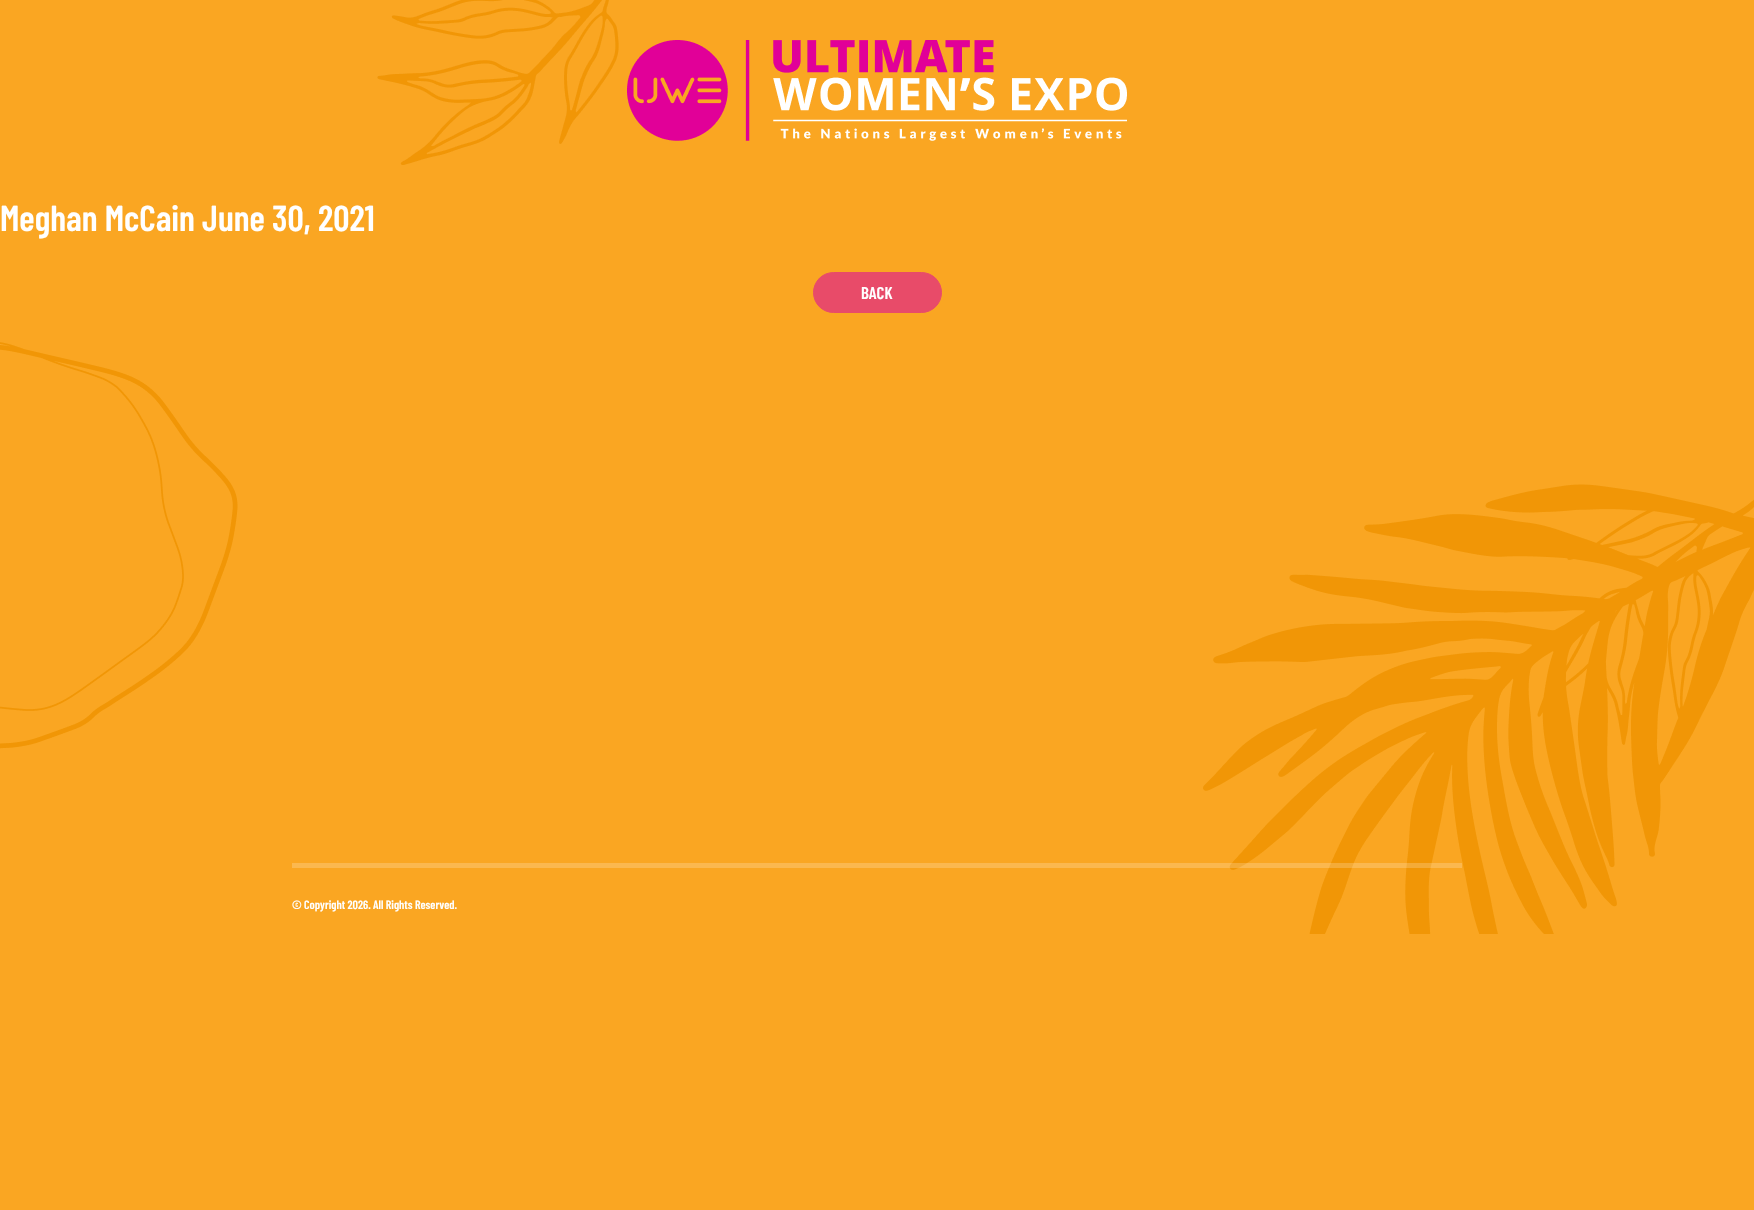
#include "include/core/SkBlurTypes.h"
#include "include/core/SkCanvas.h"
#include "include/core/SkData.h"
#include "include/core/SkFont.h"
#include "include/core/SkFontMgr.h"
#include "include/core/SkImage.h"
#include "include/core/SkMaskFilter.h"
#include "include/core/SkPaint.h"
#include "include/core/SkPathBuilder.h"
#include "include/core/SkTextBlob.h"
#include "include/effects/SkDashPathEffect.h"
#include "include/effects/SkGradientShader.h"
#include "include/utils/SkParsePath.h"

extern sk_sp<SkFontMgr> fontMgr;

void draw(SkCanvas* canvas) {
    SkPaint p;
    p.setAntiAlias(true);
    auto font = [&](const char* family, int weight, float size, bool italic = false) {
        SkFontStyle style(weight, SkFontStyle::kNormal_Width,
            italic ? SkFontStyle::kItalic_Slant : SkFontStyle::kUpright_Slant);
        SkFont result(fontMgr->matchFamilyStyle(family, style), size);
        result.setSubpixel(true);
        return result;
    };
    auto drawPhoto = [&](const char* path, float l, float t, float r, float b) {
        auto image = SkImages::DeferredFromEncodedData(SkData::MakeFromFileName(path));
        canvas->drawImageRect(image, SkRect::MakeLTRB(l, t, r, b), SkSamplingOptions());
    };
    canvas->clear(0xFFFAA622);
    drawPhoto("media/1.png", 377, 0, 619, 165);
    drawPhoto("media/2.png", 627, 40, 1127, 141);
    auto font1 = font("Barlow Condensed", 600, 36);
    p.setColor(0xFFFFFFFF);
    canvas->drawString("Meghan McCain June 30, 2021", 0, 231, font1, p);
    p.setColor(0xFFE84B69);
    canvas->drawRoundRect(SkRect::MakeLTRB(813.5f, 272.5f, 941.5f, 312.5f), 20, 20, p);
    p.setStyle(SkPaint::kStroke_Style);
    p.setStrokeWidth(1);
    canvas->drawRoundRect(SkRect::MakeLTRB(813.5f, 272.5f, 941.5f, 312.5f), 20, 20, p);
    auto font2 = font("Barlow Condensed", 600, 17);
    p.setStyle(SkPaint::kFill_Style);
    p.setColor(0xFFFFFFFF);
    canvas->drawString("BACK", 861, 299, font2, p);
    drawPhoto("media/4.png", 1203, 341, 1754, 934);
    p.setColor(0x33FFFFFF);
    canvas->drawRect(SkRect::MakeLTRB(292, 863, 1462, 868), p);
    auto font3 = font("Barlow Condensed", 600, 12);
    p.setColor(0xFFFFFFFF);
    canvas->drawString("© Copyright 2026. All Rights Reserved.", 292, 909, font3, p);
    drawPhoto("media/3.png", 0, 341, 551, 749);
}
